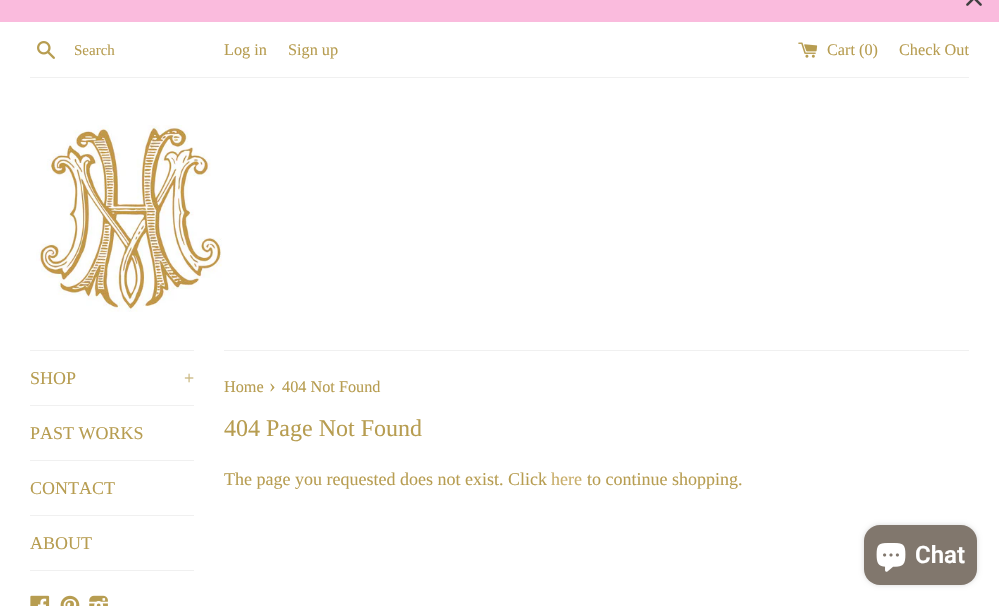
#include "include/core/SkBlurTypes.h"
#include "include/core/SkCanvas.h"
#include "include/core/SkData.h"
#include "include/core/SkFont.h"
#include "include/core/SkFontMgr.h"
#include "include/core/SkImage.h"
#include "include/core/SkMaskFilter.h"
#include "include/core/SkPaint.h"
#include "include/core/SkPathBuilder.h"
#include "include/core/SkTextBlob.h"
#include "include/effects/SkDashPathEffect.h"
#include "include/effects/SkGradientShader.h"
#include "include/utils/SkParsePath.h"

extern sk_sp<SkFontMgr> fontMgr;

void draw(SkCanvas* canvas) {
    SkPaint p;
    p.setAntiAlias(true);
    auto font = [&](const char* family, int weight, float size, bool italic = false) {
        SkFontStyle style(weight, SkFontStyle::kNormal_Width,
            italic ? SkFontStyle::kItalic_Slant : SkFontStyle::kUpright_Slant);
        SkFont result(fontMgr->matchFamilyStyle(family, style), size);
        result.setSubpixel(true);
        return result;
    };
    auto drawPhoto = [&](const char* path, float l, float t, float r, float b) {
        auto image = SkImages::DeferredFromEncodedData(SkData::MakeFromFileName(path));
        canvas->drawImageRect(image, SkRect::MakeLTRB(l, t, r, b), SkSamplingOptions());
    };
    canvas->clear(0xFFFFFFFF);
    p.setColor(0xFFFABBDD);
    canvas->drawRect(SkRect::MakeLTRB(0, 0, 999, 22), p);
    drawPhoto("media/1.png", 966, 0, 982, 6);
    drawPhoto("media/2.png", 37, 41, 55, 59);
    auto font1 = font("Liberation Serif", 400, 15);
    p.setColor(0xFFB79D51);
    canvas->drawString("Search", 74, 55, font1, p);
    auto font2 = font("Liberation Serif", 400, 16.25f);
    canvas->drawString("Log in", 224, 55, font2, p);
    canvas->drawString("Sign up", 288, 55, font2, p);
    drawPhoto("media/3.png", 798, 42, 818, 58);
    canvas->drawString("Cart (0)", 827, 55, font2, p);
    canvas->drawString("Check Out", 899, 55, font2, p);
    p.setColor(0xFFF0F0F0);
    canvas->drawRect(SkRect::MakeLTRB(30, 77, 969, 78), p);
    drawPhoto("media/4.png", 36, 125, 222, 312);
    canvas->drawRect(SkRect::MakeLTRB(30, 350, 194, 351), p);
    canvas->drawRect(SkRect::MakeLTRB(30, 405, 194, 406), p);
    auto font3 = font("Liberation Serif", 400, 18);
    p.setColor(0xFFB79D51);
    canvas->drawString("SHOP", 30, 384, font3, p);
    p.setColor(0xFFC5B174);
    canvas->drawString("+", 184, 384, font3, p);
    p.setColor(0xFFF0F0F0);
    canvas->drawRect(SkRect::MakeLTRB(30, 460, 194, 461), p);
    p.setColor(0xFFB79D51);
    canvas->drawString("PAST WORKS", 30, 439, font3, p);
    p.setColor(0xFFF0F0F0);
    canvas->drawRect(SkRect::MakeLTRB(30, 515, 194, 516), p);
    p.setColor(0xFFB79D51);
    canvas->drawString("CONTACT", 30, 494, font3, p);
    p.setColor(0xFFF0F0F0);
    canvas->drawRect(SkRect::MakeLTRB(30, 570, 194, 571), p);
    p.setColor(0xFFB79D51);
    canvas->drawString("ABOUT", 30, 549, font3, p);
    drawPhoto("media/5.png", 30, 595, 50, 606);
    drawPhoto("media/6.png", 60, 595, 80, 606);
    drawPhoto("media/7.png", 89, 595, 108, 606);
    p.setColor(0xFFF0F0F0);
    canvas->drawRect(SkRect::MakeLTRB(224, 350, 969, 351), p);
    p.setColor(0xFFB79D51);
    canvas->drawString("Home", 224, 392, font2, p);
    auto font4 = font("Liberation Serif", 400, 20);
    canvas->drawString("›", 269, 392, font4, p);
    canvas->drawString("404 Not Found", 282, 392, font2, p);
    auto font5 = font("Liberation Serif", 400, 24);
    canvas->drawString("404 Page Not Found", 224, 436, font5, p);
    canvas->drawString("The page you requested does not exist. Click", 224, 485, font3, p);
    p.setColor(0xFFC9AE6A);
    canvas->drawString("here", 551, 485, font3, p);
    p.setColor(0xFFB79D51);
    canvas->drawString("to continue shopping.", 587, 485, font3, p);
    p.setColor(0x26000000);
    p.setMaskFilter(SkMaskFilter::MakeBlur(kNormal_SkBlurStyle, 2.5f));
    canvas->drawRoundRect(SkRect::MakeLTRB(864, 525, 977, 585), 16, 16, p);
    p.setMaskFilter(nullptr);
    p.setColor(0xFF81776D);
    canvas->drawRoundRect(SkRect::MakeLTRB(864, 525, 977, 585), 16, 16, p);
    drawPhoto("media/8.png", 876, 543, 906, 572);
    auto font6 = font("Roboto", 600, 24);
    p.setColor(0xFFFFFFFF);
    canvas->drawString("Chat", 915, 563, font6, p);
}
